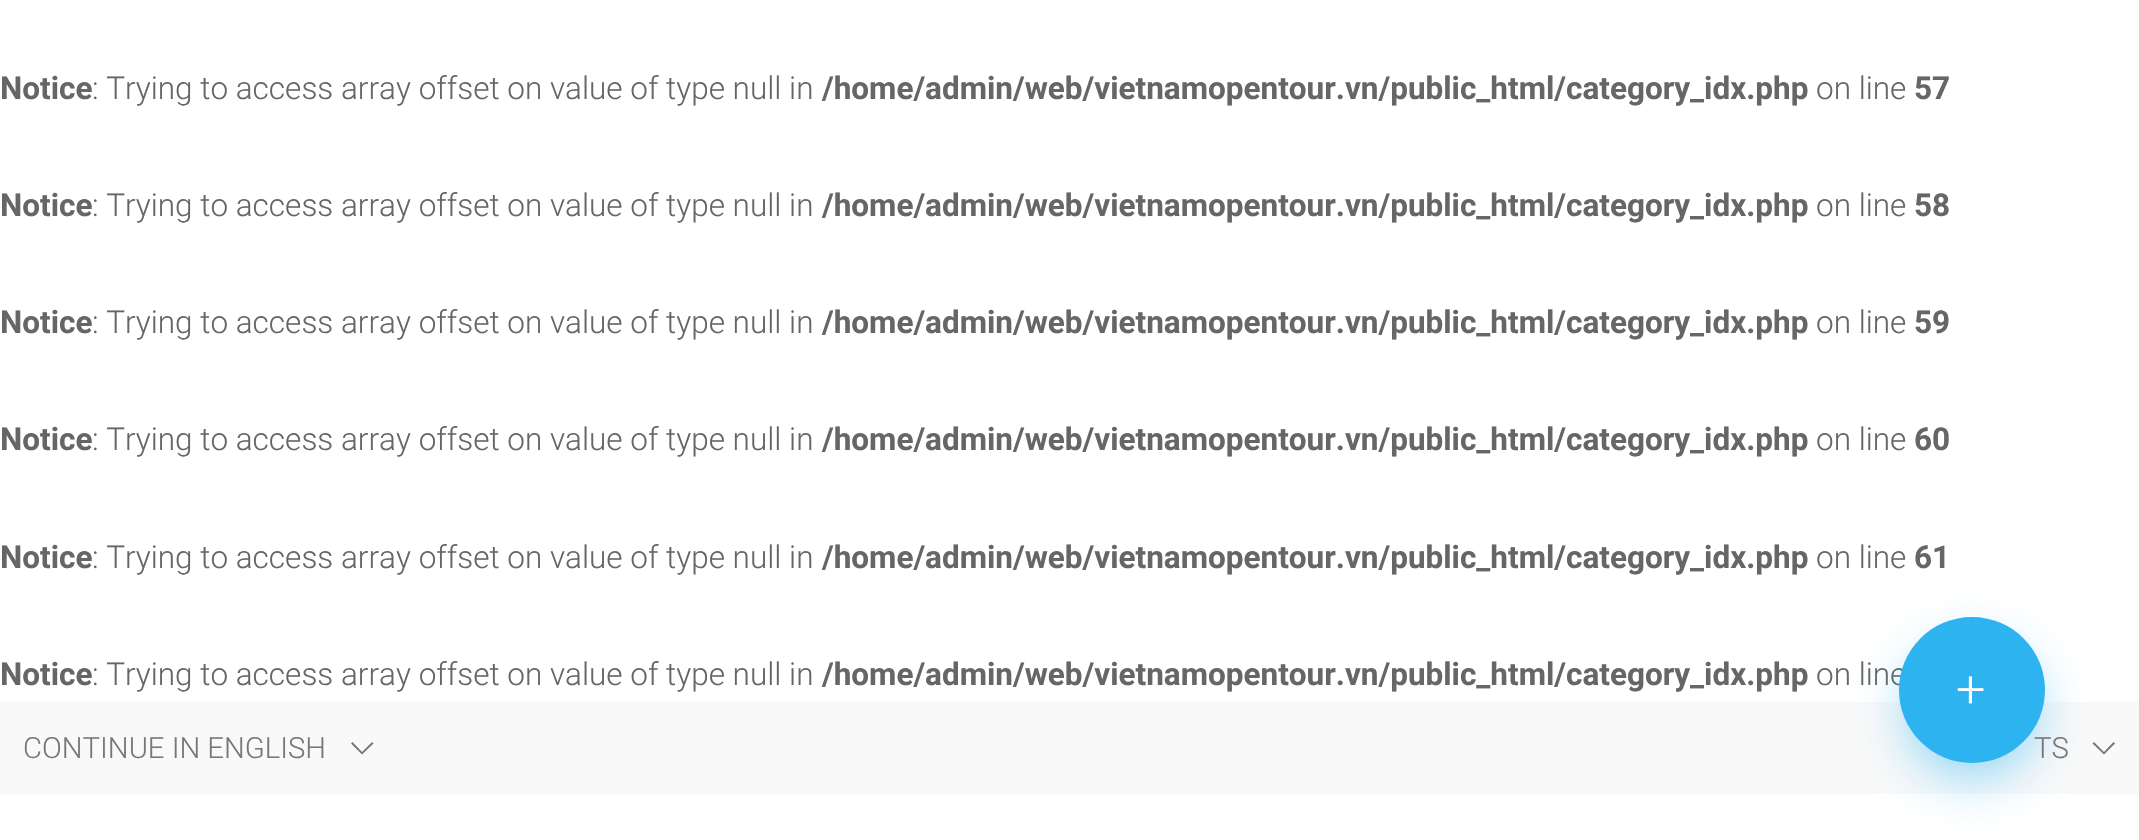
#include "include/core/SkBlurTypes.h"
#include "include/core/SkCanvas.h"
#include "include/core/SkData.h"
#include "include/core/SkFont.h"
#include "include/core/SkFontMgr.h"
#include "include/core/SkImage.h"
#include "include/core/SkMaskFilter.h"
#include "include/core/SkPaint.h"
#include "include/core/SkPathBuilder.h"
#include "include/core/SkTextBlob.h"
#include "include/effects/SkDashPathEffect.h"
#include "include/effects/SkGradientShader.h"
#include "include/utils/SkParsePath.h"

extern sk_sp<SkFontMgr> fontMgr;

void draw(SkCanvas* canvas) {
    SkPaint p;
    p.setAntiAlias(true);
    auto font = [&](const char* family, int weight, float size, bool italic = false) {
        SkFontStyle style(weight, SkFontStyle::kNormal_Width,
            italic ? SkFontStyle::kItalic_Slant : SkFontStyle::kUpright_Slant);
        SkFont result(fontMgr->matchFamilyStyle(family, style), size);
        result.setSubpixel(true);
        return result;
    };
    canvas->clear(0xFFFFFFFF);
    auto font1 = font("Roboto", 700, 31.5f);
    p.setColor(0xFF666666);
    canvas->drawString("Notice", 0, 99, font1, p);
    auto font2 = font("Roboto", 300, 31.5f);
    canvas->drawString(": Trying to access array offset on value of type null in", 92, 99, font2, p);
    canvas->drawString("/home/admin/web/vietnamopentour.vn/public_html/category_idx.php", 822, 99, font1, p);
    canvas->drawString("on line", 1816, 99, font2, p);
    canvas->drawString("57", 1914, 99, font1, p);
    canvas->drawString("Notice", 0, 216, font1, p);
    canvas->drawString(": Trying to access array offset on value of type null in", 92, 216, font2, p);
    canvas->drawString("/home/admin/web/vietnamopentour.vn/public_html/category_idx.php", 822, 216, font1, p);
    canvas->drawString("on line", 1816, 216, font2, p);
    canvas->drawString("58", 1914, 216, font1, p);
    canvas->drawString("Notice", 0, 333, font1, p);
    canvas->drawString(": Trying to access array offset on value of type null in", 92, 333, font2, p);
    canvas->drawString("/home/admin/web/vietnamopentour.vn/public_html/category_idx.php", 822, 333, font1, p);
    canvas->drawString("on line", 1816, 333, font2, p);
    canvas->drawString("59", 1914, 333, font1, p);
    canvas->drawString("Notice", 0, 450, font1, p);
    canvas->drawString(": Trying to access array offset on value of type null in", 92, 450, font2, p);
    canvas->drawString("/home/admin/web/vietnamopentour.vn/public_html/category_idx.php", 822, 450, font1, p);
    canvas->drawString("on line", 1816, 450, font2, p);
    canvas->drawString("60", 1914, 450, font1, p);
    canvas->drawString("Notice", 0, 568, font1, p);
    canvas->drawString(": Trying to access array offset on value of type null in", 92, 568, font2, p);
    canvas->drawString("/home/admin/web/vietnamopentour.vn/public_html/category_idx.php", 822, 568, font1, p);
    canvas->drawString("on line", 1816, 568, font2, p);
    canvas->drawString("61", 1914, 568, font1, p);
    canvas->drawString("Notice", 0, 685, font1, p);
    canvas->drawString(": Trying to access array offset on value of type null in", 92, 685, font2, p);
    canvas->drawString("/home/admin/web/vietnamopentour.vn/public_html/category_idx.php", 822, 685, font1, p);
    canvas->drawString("on line", 1816, 685, font2, p);
    p.setColor(0xFFF9F9F9);
    canvas->drawRect(SkRect::MakeLTRB(0, 702, 2139, 794), p);
    p.setColor(0xFF777777);
    canvas->drawPath(SkPathBuilder().moveTo(2094, 742).lineTo(2104, 752).lineTo(2113.5f, 742).lineTo(2115, 743.5f).lineTo(2104, 754.5f).lineTo(2092.5f, 743.5f).close().detach(), p);
    p.setColor(0x992CB3F0);
    p.setMaskFilter(SkMaskFilter::MakeBlur(kNormal_SkBlurStyle, 28));
    canvas->drawRoundRect(SkRect::MakeLTRB(1910, 650, 2034, 774), 62, 62, p);
    p.setMaskFilter(nullptr);
    auto font3 = font("Roboto", 300, 29.25f);
    p.setColor(0xFF777777);
    canvas->drawString("TS", 2034, 758, font3, p);
    p.setColor(0xFF2CB3F0);
    canvas->drawCircle(1972, 690, 73, p);
    auto font4 = font("Roboto", 300, 52);
    p.setColor(0xFFFFFFFF);
    canvas->drawString("+", 1956, 707, font4, p);
    p.setColor(0xFF777777);
    canvas->drawString("CONTINUE IN ENGLISH", 23, 758, font3, p);
    canvas->drawPath(SkPathBuilder().moveTo(352.5f, 742).lineTo(362, 752).lineTo(372, 742).lineTo(373.5f, 743.5f).lineTo(362, 754.5f).lineTo(351, 743.5f).close().detach(), p);
}
